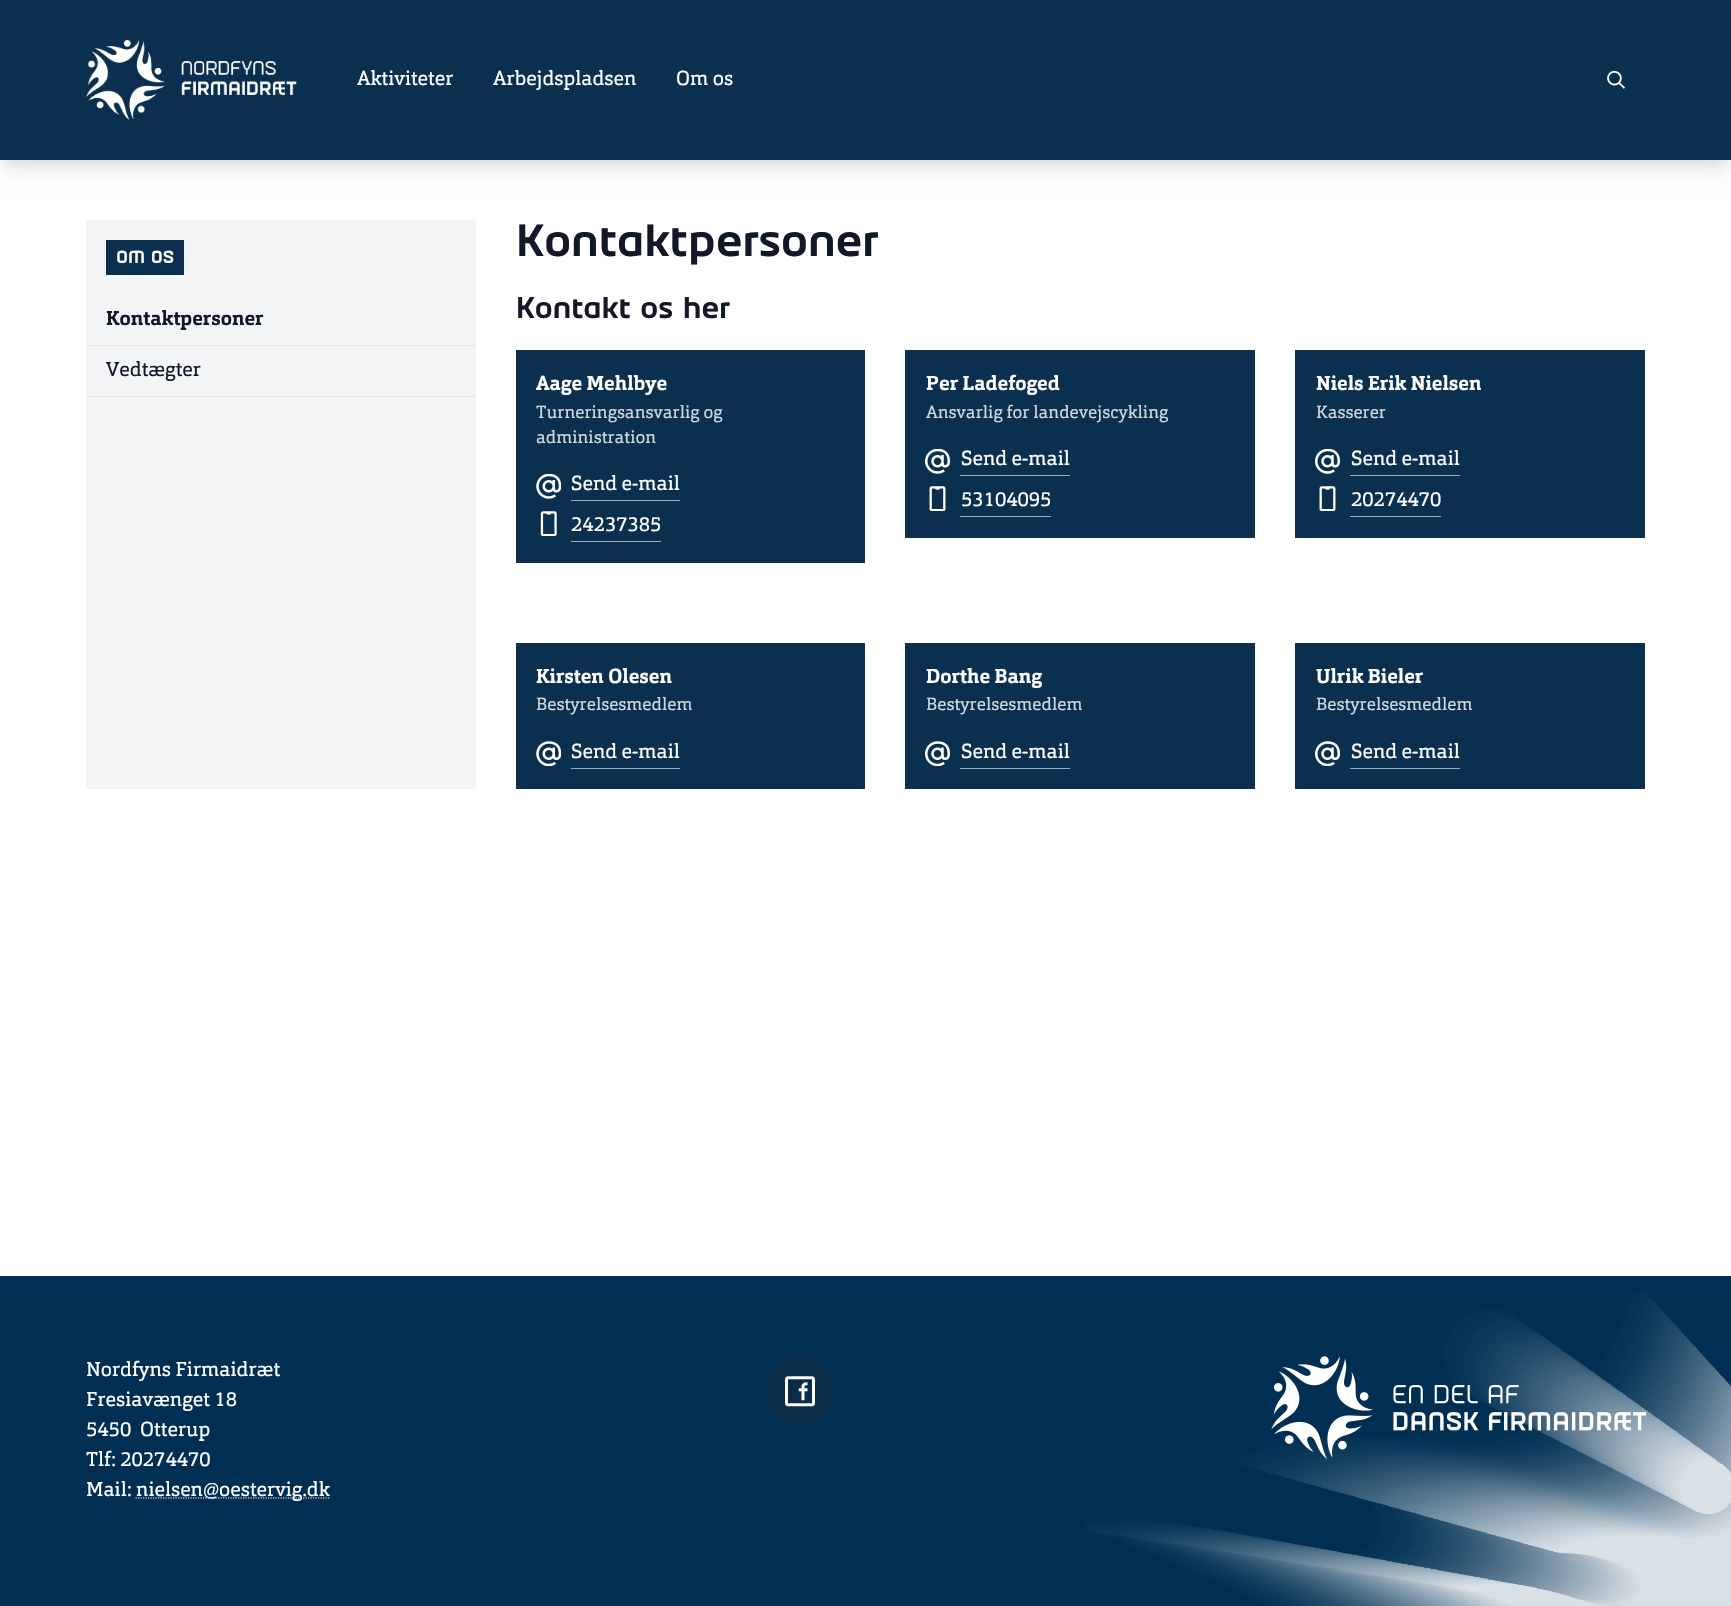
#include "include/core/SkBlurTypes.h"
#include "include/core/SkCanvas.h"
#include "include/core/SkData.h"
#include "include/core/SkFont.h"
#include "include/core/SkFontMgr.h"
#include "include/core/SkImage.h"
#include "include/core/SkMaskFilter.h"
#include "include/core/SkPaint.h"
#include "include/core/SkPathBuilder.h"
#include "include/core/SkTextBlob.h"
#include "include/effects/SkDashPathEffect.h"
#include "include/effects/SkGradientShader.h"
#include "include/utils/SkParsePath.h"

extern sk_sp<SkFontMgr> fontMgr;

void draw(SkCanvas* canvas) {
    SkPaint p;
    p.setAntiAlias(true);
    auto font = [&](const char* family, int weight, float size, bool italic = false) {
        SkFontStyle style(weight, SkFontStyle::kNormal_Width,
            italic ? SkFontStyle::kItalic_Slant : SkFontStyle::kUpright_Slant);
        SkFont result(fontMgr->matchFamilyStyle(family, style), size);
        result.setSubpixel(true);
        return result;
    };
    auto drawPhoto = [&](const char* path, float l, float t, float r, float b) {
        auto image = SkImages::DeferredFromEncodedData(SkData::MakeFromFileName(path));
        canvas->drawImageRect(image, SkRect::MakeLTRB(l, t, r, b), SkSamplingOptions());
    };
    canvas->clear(0xFFFFFFFF);
    p.setColor(0x0D000000);
    p.setMaskFilter(SkMaskFilter::MakeBlur(kNormal_SkBlurStyle, 4));
    canvas->drawRect(SkRect::MakeLTRB(3, 8, 1729, 163), p);
    p.setMaskFilter(nullptr);
    p.setColor(0x1A000000);
    p.setMaskFilter(SkMaskFilter::MakeBlur(kNormal_SkBlurStyle, 9.5f));
    canvas->drawRect(SkRect::MakeLTRB(4, 16, 1728, 169), p);
    p.setMaskFilter(nullptr);
    p.setColor(0xFF0B304F);
    canvas->drawRect(SkRect::MakeLTRB(0, 0, 1731, 160), p);
    drawPhoto("media/1.png", 86, 40, 297, 120);
    auto font1 = font("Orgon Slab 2", 400, 20);
    p.setColor(0xFFFFFFFF);
    {
        const struct { const char* s; float x, y; } items[] = {
            {"Aktiviteter", 357, 85},
            {"Arbejdspladsen", 493, 85},
            {"Om os", 676, 85},
        };
        for (auto [s, x, y] : items) {
            canvas->drawString(s, x, y, font1, p);
        }
    }
    drawPhoto("media/2.png", 1607, 70, 1625, 89);
    p.setColor(0xFFF3F4F6);
    canvas->drawRect(SkRect::MakeLTRB(86, 220, 476, 789), p);
    p.setColor(0xFF0B304F);
    canvas->drawRect(SkRect::MakeLTRB(106, 240, 184, 275), p);
    auto font2 = font("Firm", 700, 17.5f);
    p.setColor(0xFFFFFFFF);
    canvas->drawString("OM OS", 116, 263, font2, p);
    p.setColor(0xFFE5E7EB);
    canvas->drawRect(SkRect::MakeLTRB(86, 345, 476, 346), p);
    auto font3 = font("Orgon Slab", 400, 20);
    p.setColor(0xFF111827);
    canvas->drawString("Kontaktpersoner", 106, 325, font3, p);
    p.setColor(0xFFE5E7EB);
    canvas->drawRect(SkRect::MakeLTRB(86, 396, 476, 397), p);
    p.setColor(0xFF111827);
    canvas->drawString("Vedtægter", 106, 376, font1, p);
    auto font4 = font("Firm", 700, 45);
    canvas->drawString("Kontaktpersoner", 516, 256, font4, p);
    auto font5 = font("Firm", 700, 30);
    canvas->drawString("Kontakt os her", 516, 318, font5, p);
    p.setColor(0xFF0B304F);
    canvas->drawRect(SkRect::MakeLTRB(516, 350, 865, 563), p);
    p.setColor(0xFFFFFFFF);
    canvas->drawString("Aage Mehlbye", 536, 390, font3, p);
    auto font6 = font("Orgon Slab 2", 400, 17.5f);
    p.setColor(0xFFCED6DC);
    canvas->drawString("Turneringsansvarlig og", 536, 418, font6, p);
    canvas->drawString("administration", 536, 443, font6, p);
    drawPhoto("media/3.png", 536, 474, 561, 499);
    p.setColor(0xFFFFFFFF);
    canvas->drawString("Send e-mail", 571, 490, font1, p);
    p.setColor(0xFF9DACB9);
    canvas->drawRect(SkRect::MakeLTRB(571, 500, 680, 501), p);
    drawPhoto("media/4.png", 540, 511, 557, 536);
    p.setColor(0xFFFFFFFF);
    canvas->drawString("24237385", 571, 531, font1, p);
    p.setColor(0xFF9DACB9);
    canvas->drawRect(SkRect::MakeLTRB(571, 541, 661, 542), p);
    p.setColor(0xFF0B304F);
    canvas->drawRect(SkRect::MakeLTRB(905, 350, 1255, 538), p);
    p.setColor(0xFFFFFFFF);
    canvas->drawString("Per Ladefoged", 926, 390, font3, p);
    p.setColor(0xFFCED6DC);
    canvas->drawString("Ansvarlig for landevejscykling", 926, 418, font6, p);
    drawPhoto("media/5.png", 925, 449, 950, 474);
    p.setColor(0xFFFFFFFF);
    canvas->drawString("Send e-mail", 961, 465, font1, p);
    p.setColor(0xFF9DACB9);
    canvas->drawRect(SkRect::MakeLTRB(960, 475, 1070, 476), p);
    drawPhoto("media/6.png", 929, 486, 946, 511);
    p.setColor(0xFFFFFFFF);
    canvas->drawString("53104095", 961, 506, font1, p);
    p.setColor(0xFF9DACB9);
    canvas->drawRect(SkRect::MakeLTRB(960, 516, 1051, 517), p);
    p.setColor(0xFF0B304F);
    canvas->drawRect(SkRect::MakeLTRB(1295, 350, 1645, 538), p);
    p.setColor(0xFFFFFFFF);
    canvas->drawString("Niels Erik Nielsen", 1316, 390, font3, p);
    p.setColor(0xFFCED6DC);
    canvas->drawString("Kasserer", 1316, 418, font6, p);
    drawPhoto("media/5.png", 1315, 449, 1340, 474);
    p.setColor(0xFFFFFFFF);
    canvas->drawString("Send e-mail", 1351, 465, font1, p);
    p.setColor(0xFF9DACB9);
    canvas->drawRect(SkRect::MakeLTRB(1350, 475, 1460, 476), p);
    drawPhoto("media/6.png", 1319, 486, 1336, 511);
    p.setColor(0xFFFFFFFF);
    canvas->drawString("20274470", 1351, 506, font1, p);
    p.setColor(0xFF9DACB9);
    canvas->drawRect(SkRect::MakeLTRB(1350, 516, 1441, 517), p);
    p.setColor(0xFF0B304F);
    canvas->drawRect(SkRect::MakeLTRB(516, 643, 865, 789), p);
    p.setColor(0xFFFFFFFF);
    canvas->drawString("Kirsten Olesen", 536, 683, font3, p);
    p.setColor(0xFFCED6DC);
    canvas->drawString("Bestyrelsesmedlem", 536, 710, font6, p);
    drawPhoto("media/7.png", 536, 741, 561, 766);
    p.setColor(0xFFFFFFFF);
    canvas->drawString("Send e-mail", 571, 758, font1, p);
    p.setColor(0xFF9DACB9);
    canvas->drawRect(SkRect::MakeLTRB(571, 768, 680, 769), p);
    p.setColor(0xFF0B304F);
    canvas->drawRect(SkRect::MakeLTRB(905, 643, 1255, 789), p);
    p.setColor(0xFFFFFFFF);
    canvas->drawString("Dorthe Bang", 926, 683, font3, p);
    p.setColor(0xFFCED6DC);
    canvas->drawString("Bestyrelsesmedlem", 926, 710, font6, p);
    drawPhoto("media/8.png", 925, 741, 950, 766);
    p.setColor(0xFFFFFFFF);
    canvas->drawString("Send e-mail", 961, 758, font1, p);
    p.setColor(0xFF9DACB9);
    canvas->drawRect(SkRect::MakeLTRB(960, 768, 1070, 769), p);
    p.setColor(0xFF0B304F);
    canvas->drawRect(SkRect::MakeLTRB(1295, 643, 1645, 789), p);
    p.setColor(0xFFFFFFFF);
    canvas->drawString("Ulrik Bieler", 1316, 683, font3, p);
    p.setColor(0xFFCED6DC);
    canvas->drawString("Bestyrelsesmedlem", 1316, 710, font6, p);
    drawPhoto("media/8.png", 1315, 741, 1340, 766);
    p.setColor(0xFFFFFFFF);
    canvas->drawString("Send e-mail", 1351, 758, font1, p);
    p.setColor(0xFF9DACB9);
    canvas->drawRect(SkRect::MakeLTRB(1350, 768, 1460, 769), p);
    p.setColor(0xFF002F53);
    canvas->drawRect(SkRect::MakeLTRB(0, 1276, 1731, 1606), p);
    drawPhoto("media/9.png", 1085, 1292, 1731, 1606);
    p.setColor(0xFFFFFFFF);
    {
        const struct { const char* s; float x, y; } items[] = {
            {"Nordfyns Firmaidræt", 86, 1376},
            {"Fresiavænget 18", 86, 1406},
            {"5450  Otterup", 86, 1436},
            {"Tlf: 20274470", 86, 1466},
            {"Mail:", 86, 1496},
        };
        for (auto [s, x, y] : items) {
            canvas->drawString(s, x, y, font1, p);
        }
    }
    p.setStyle(SkPaint::kStroke_Style);
    p.setStrokeWidth(1.2f);
    p.setPathEffect(SkDashPathEffect::Make({{1.25f, 1.25f}}, 0));
    canvas->drawPath(SkPathBuilder().moveTo(135.5f, 1498).lineTo(329.5f, 1498).detach(), p);
    p.setPathEffect(nullptr);
    p.setStyle(SkPaint::kFill_Style);
    canvas->drawString("nielsen@oestervig.dk", 136, 1496, font1, p);
    p.setColor(0xFF0A2C49);
    canvas->drawCircle(800, 1391, 35, p);
    drawPhoto("media/10.png", 785, 1376, 815, 1407);
    drawPhoto("media/11.png", 1271, 1356, 1646, 1459);
}
